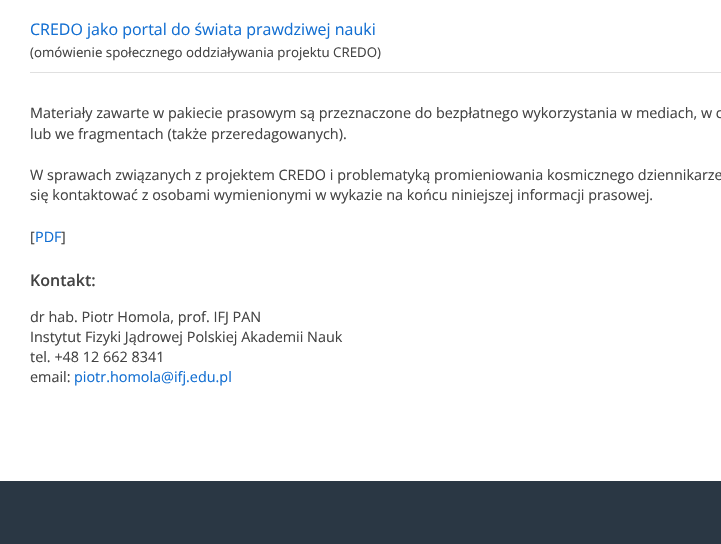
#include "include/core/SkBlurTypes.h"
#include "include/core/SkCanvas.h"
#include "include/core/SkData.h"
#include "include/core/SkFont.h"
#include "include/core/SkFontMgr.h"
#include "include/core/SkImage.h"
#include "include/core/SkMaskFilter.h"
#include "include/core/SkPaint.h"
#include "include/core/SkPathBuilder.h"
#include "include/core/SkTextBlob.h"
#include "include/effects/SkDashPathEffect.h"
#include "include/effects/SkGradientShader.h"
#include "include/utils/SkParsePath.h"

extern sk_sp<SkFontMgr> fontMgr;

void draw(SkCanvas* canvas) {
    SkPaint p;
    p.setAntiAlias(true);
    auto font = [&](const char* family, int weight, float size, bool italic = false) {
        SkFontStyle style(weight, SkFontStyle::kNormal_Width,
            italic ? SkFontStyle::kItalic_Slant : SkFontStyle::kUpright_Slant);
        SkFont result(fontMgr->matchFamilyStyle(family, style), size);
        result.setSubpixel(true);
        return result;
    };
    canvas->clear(0xFFFFFFFF);
    p.setColor(0xFFE0E0E0);
    canvas->drawRect(SkRect::MakeLTRB(30, 72, 721, 73), p);
    auto font1 = font("Open Sans", 400, 16);
    p.setColor(0xFF136FD2);
    canvas->drawString("CREDO jako portal do świata prawdziwej nauki", 30, 35, font1, p);
    auto font2 = font("Open Sans", 400, 13.3f);
    p.setColor(0xFF434343);
    canvas->drawString("(omówienie społecznego oddziaływania projektu CREDO)", 30, 57, font2, p);
    auto font3 = font("Open Sans", 400, 14.4f);
    {
        const struct { const char* s; float x, y; } items[] = {
            {"Materiały zawarte w pakiecie prasowym są przeznaczone do bezpłatnego wykorzystania w mediach, w c", 30, 118},
            {"lub we fragmentach (także przeredagowanych).", 30, 139},
            {"W sprawach związanych z projektem CREDO i problematyką promieniowania kosmicznego dziennikarze", 30, 180},
            {"się kontaktować z osobami wymienionymi w wykazie na końcu niniejszej informacji prasowej.", 30, 200},
            {"[", 30, 242},
        };
        for (auto [s, x, y] : items) {
            canvas->drawString(s, x, y, font3, p);
        }
    }
    p.setColor(0xFF136FD2);
    canvas->drawString("PDF", 35, 242, font3, p);
    p.setColor(0xFF434343);
    canvas->drawString("]", 61, 242, font3, p);
    auto font4 = font("Open Sans", 600, 16);
    canvas->drawString("Kontakt:", 30, 286, font4, p);
    {
        const struct { const char* s; float x, y; } items[] = {
            {"dr hab. Piotr Homola, prof. IFJ PAN", 30, 322},
            {"Instytut Fizyki Jądrowej Polskiej Akademii Nauk", 30, 342},
            {"tel. +48 12 662 8341", 30, 362},
            {"email:", 30, 382},
        };
        for (auto [s, x, y] : items) {
            canvas->drawString(s, x, y, font3, p);
        }
    }
    p.setColor(0xFF136FD2);
    canvas->drawString("piotr.homola@ifj.edu.pl", 74, 382, font3, p);
    p.setColor(0xFF2A3744);
    canvas->drawRect(SkRect::MakeLTRB(0, 481, 721, 544), p);
}
